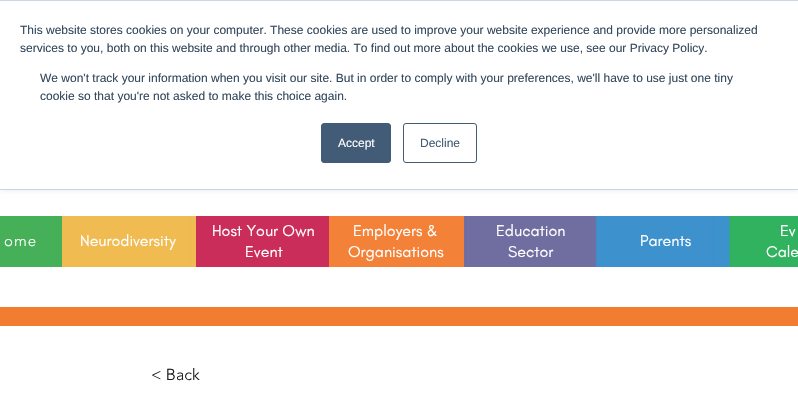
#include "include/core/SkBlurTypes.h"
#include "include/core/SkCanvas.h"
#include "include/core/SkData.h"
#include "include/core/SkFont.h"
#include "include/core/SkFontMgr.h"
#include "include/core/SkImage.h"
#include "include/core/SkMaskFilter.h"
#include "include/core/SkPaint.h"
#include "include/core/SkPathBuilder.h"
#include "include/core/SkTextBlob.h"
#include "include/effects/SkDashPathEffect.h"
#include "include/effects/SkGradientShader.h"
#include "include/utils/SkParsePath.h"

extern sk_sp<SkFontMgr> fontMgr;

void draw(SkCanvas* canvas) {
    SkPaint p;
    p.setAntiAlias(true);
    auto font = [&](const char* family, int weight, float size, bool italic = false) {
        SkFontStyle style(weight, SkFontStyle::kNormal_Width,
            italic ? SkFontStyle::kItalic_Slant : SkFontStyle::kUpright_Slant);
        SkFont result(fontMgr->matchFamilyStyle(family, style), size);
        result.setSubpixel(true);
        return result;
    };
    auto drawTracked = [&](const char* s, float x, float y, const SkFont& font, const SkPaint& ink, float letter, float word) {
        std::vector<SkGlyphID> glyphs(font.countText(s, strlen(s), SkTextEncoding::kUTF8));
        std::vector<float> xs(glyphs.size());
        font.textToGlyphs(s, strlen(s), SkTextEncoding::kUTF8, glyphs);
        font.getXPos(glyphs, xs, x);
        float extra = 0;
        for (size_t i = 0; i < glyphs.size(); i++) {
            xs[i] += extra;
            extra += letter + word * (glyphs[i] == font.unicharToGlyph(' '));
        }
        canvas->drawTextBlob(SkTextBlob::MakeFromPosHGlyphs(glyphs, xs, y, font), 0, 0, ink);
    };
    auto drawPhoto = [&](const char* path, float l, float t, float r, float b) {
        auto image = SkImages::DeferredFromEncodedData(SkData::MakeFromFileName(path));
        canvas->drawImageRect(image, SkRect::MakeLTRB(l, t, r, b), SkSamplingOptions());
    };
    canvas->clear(0xFFFFFFFF);
    p.setColor(0xFFEAF0F6);
    p.setMaskFilter(SkMaskFilter::MakeBlur(kNormal_SkBlurStyle, 2.5f));
    canvas->drawRect(SkRect::MakeLTRB(0, 1, 798, 191), p);
    p.setMaskFilter(nullptr);
    {
        const struct { float l, t, r, b; SkColor color; } items[] = {
            {0, 1, 798, 189, 0xFFFFFFFF},
            {0, 0, 798, 1, 0xFFCBD6E2},
            {0, 189, 798, 190, 0xFFCBD6E2},
        };
        for (auto [l, t, r, b, color] : items) {
            p.setColor(color);
            canvas->drawRect(SkRect::MakeLTRB(l, t, r, b), p);
        }
    }
    auto font1 = font("Liberation Sans", 400, 12);
    p.setColor(0xFF33475B);
    {
        const struct { const char* s; float x, y; } items[] = {
            {"This website stores cookies on your computer. These cookies are used to improve your website experience and provide more personalized", 20, 34},
            {"services to you, both on this website and through other media. To find out more about the cookies we use, see our Privacy Policy.", 20, 52},
            {"We won't track your information when you visit our site. But in order to comply with your preferences, we'll have to use just one tiny", 40, 82},
            {"cookie so that you're not asked to make this choice again.", 40, 100},
        };
        for (auto [s, x, y] : items) {
            canvas->drawString(s, x, y, font1, p);
        }
    }
    p.setColor(0xFF425B76);
    canvas->drawRoundRect(SkRect::MakeLTRB(321.5f, 123.5f, 390.5f, 162.5f), 2.5f, 2.5f, p);
    p.setStyle(SkPaint::kStroke_Style);
    p.setStrokeWidth(1);
    canvas->drawRoundRect(SkRect::MakeLTRB(321.5f, 123.5f, 390.5f, 162.5f), 2.5f, 2.5f, p);
    p.setStyle(SkPaint::kFill_Style);
    p.setColor(0xFFFFFFFF);
    canvas->drawString("Accept", 338, 147, font1, p);
    p.setStyle(SkPaint::kStroke_Style);
    p.setColor(0xFF425B76);
    canvas->drawRoundRect(SkRect::MakeLTRB(403.5f, 123.5f, 476.5f, 162.5f), 2.5f, 2.5f, p);
    p.setStyle(SkPaint::kFill_Style);
    canvas->drawString("Decline", 420, 147, font1, p);
    drawPhoto("media/1.png", 62, 216, 798, 267);
    p.setColor(0xFF45B058);
    canvas->drawRect(SkRect::MakeLTRB(0, 216, 62, 267), p);
    auto font2 = font("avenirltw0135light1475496", 300, 15);
    p.setColor(0xFFFFFFFF);
    drawTracked("ome", 4, 246, font2, p, 1, 0);
    auto font3 = font("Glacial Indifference", 400, 16);
    {
        const struct { const char* s; float x, y; } items[] = {
            {"Neurodiversity", 80, 246},
            {"Host Your Own", 212, 236},
            {"Event", 245, 257},
            {"Employers &", 353, 236},
            {"Organisations", 348, 257},
            {"Education", 496, 236},
            {"Sector", 508, 257},
            {"Parents", 640, 246},
            {"Ev", 780, 236},
            {"Cale", 766, 257},
        };
        for (auto [s, x, y] : items) {
            canvas->drawString(s, x, y, font3, p);
        }
    }
    p.setColor(0xFFF27C30);
    canvas->drawRect(SkRect::MakeLTRB(0, 307, 798, 326), p);
    auto font4 = font("avenirltw0135light1475496", 300, 16);
    p.setColor(0xFF171717);
    canvas->drawString("< Back", 151, 380, font4, p);
}
